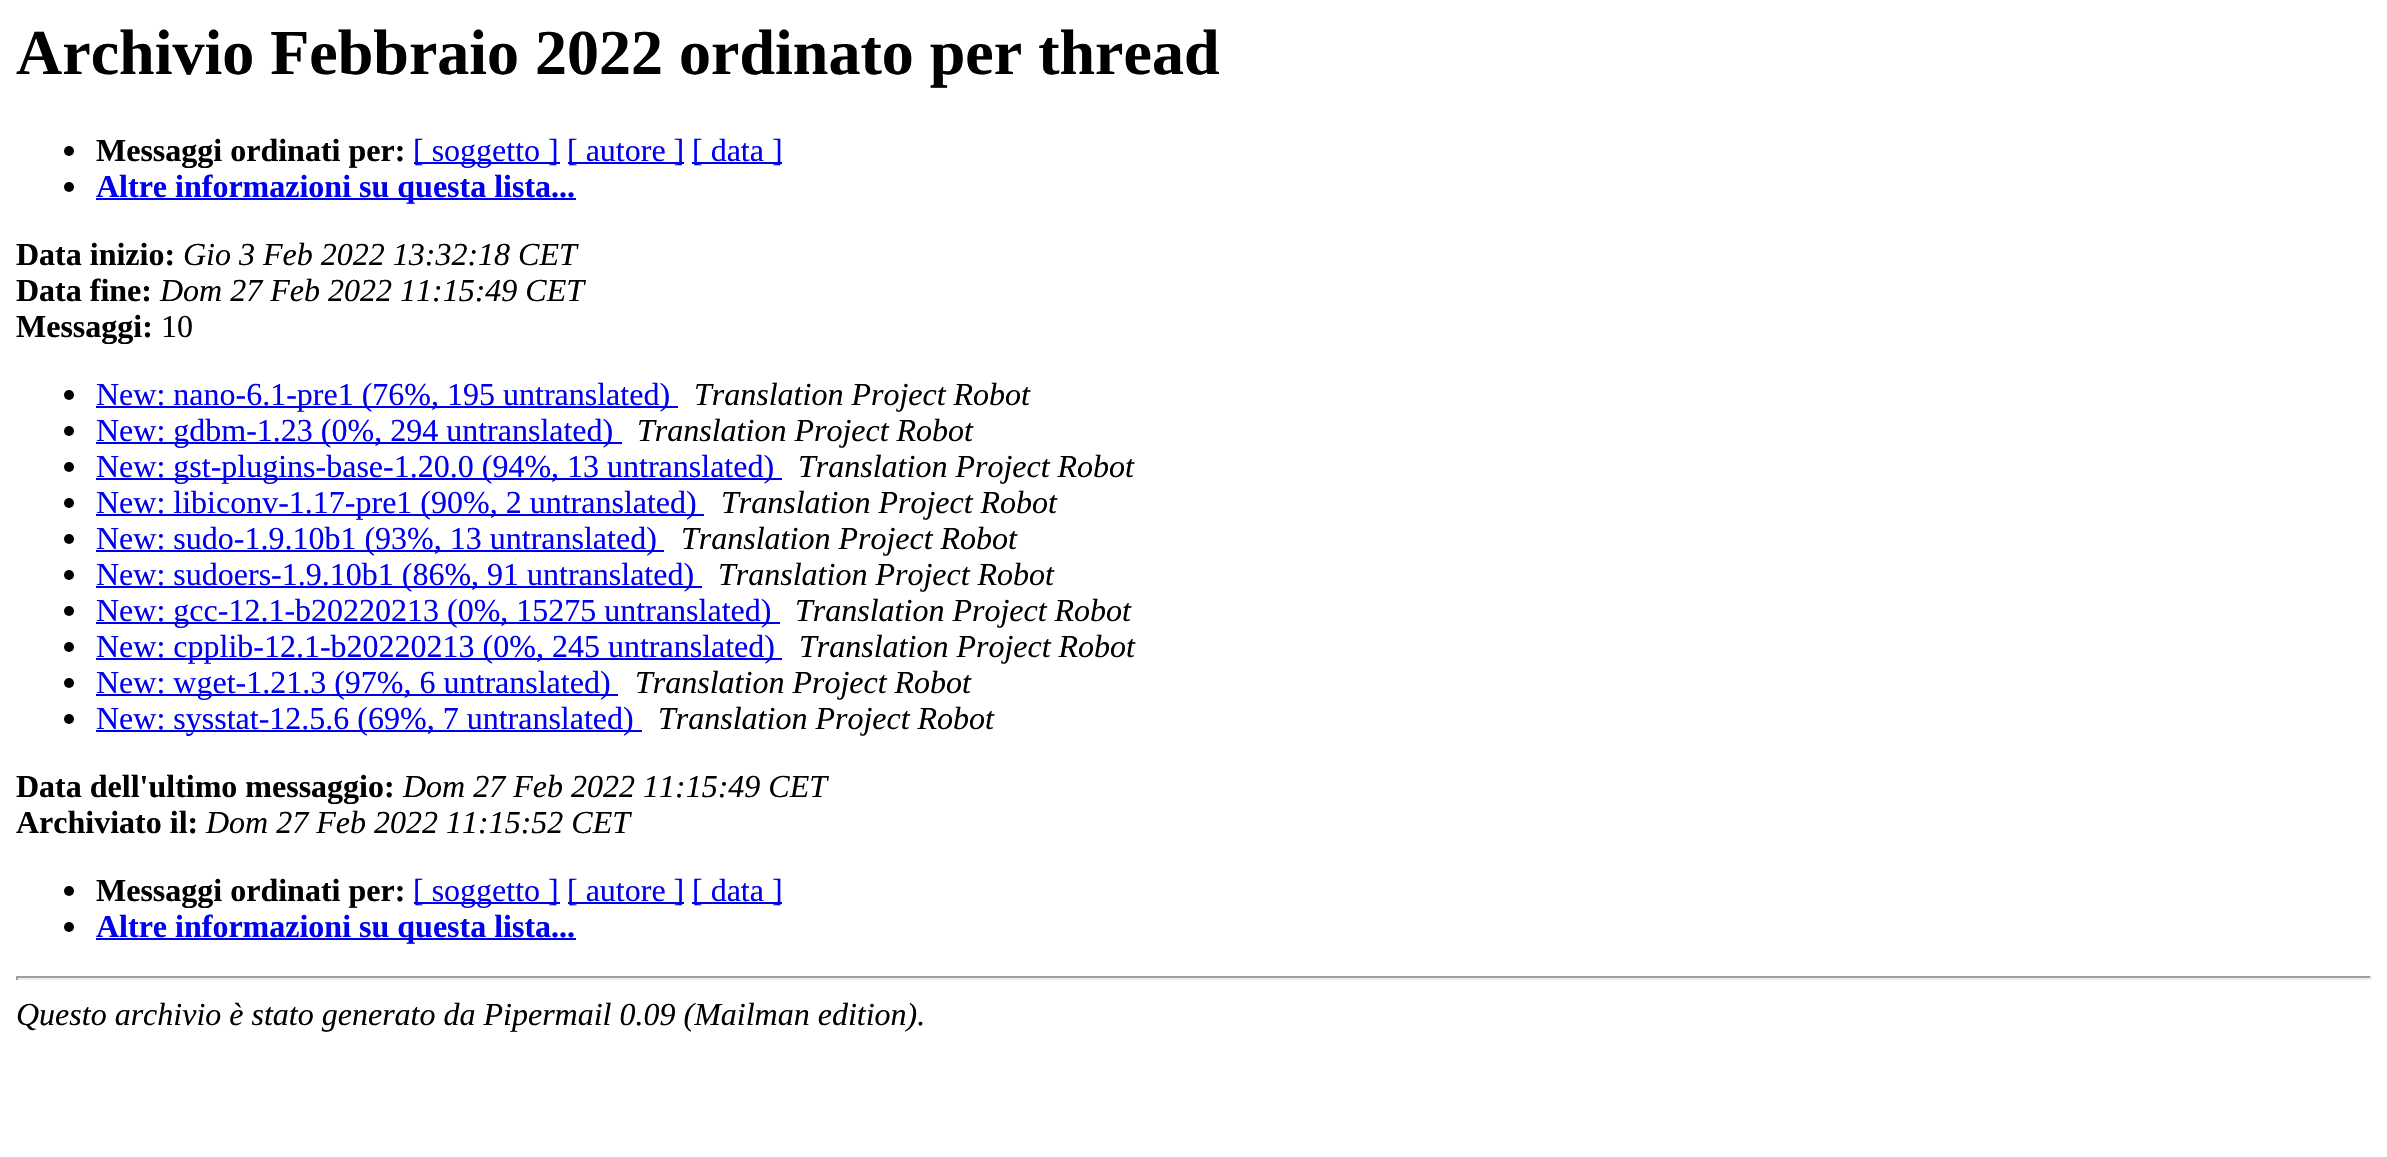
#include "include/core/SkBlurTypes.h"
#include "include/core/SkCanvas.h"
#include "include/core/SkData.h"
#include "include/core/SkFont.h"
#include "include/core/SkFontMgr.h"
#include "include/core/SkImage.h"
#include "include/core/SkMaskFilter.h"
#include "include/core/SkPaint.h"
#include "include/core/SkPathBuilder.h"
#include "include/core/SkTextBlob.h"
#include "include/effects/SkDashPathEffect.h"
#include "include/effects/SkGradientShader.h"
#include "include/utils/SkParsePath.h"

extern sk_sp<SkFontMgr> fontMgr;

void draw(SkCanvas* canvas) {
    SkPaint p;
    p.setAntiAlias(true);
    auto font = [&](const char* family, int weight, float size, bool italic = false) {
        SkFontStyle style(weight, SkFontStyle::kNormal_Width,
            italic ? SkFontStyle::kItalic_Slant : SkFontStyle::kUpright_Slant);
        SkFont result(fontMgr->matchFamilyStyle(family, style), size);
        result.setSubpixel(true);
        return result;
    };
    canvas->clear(0xFFFFFFFF);
    auto font1 = font("Liberation Serif", 700, 64);
    p.setColor(0xFF000000);
    canvas->drawString("Archivio Febbraio 2022 ordinato per thread", 16, 74, font1, p);
    canvas->drawCircle(69, 151, 5, p);
    auto font2 = font("Liberation Serif", 700, 32);
    canvas->drawString("Messaggi ordinati per:", 96, 161, font2, p);
    p.setColor(0xFF0000EE);
    canvas->drawRect(SkRect::MakeLTRB(414, 162, 560, 164), p);
    auto font3 = font("Liberation Serif", 400, 32);
    canvas->drawString("[ soggetto ]", 413, 161, font3, p);
    canvas->drawRect(SkRect::MakeLTRB(568, 162, 684, 164), p);
    canvas->drawString("[ autore ]", 567, 161, font3, p);
    canvas->drawRect(SkRect::MakeLTRB(692, 162, 782, 164), p);
    canvas->drawString("[ data ]", 692, 161, font3, p);
    p.setColor(0xFF000000);
    canvas->drawCircle(69, 187, 5, p);
    p.setColor(0xFF0000EE);
    canvas->drawRect(SkRect::MakeLTRB(96, 198, 576, 200), p);
    canvas->drawString("Altre informazioni su questa lista...", 96, 197, font2, p);
    p.setColor(0xFF000000);
    canvas->drawString("Data inizio:", 16, 265, font2, p);
    auto font4 = font("Liberation Serif", 400, 32, true);
    canvas->drawString("Gio 3 Feb 2022 13:32:18 CET", 183, 265, font4, p);
    canvas->drawString("Data fine:", 16, 301, font2, p);
    canvas->drawString("Dom 27 Feb 2022 11:15:49 CET", 160, 301, font4, p);
    canvas->drawString("Messaggi:", 16, 337, font2, p);
    canvas->drawString("10", 161, 337, font3, p);
    canvas->drawCircle(69, 395, 5, p);
    p.setColor(0xFF0000EE);
    canvas->drawRect(SkRect::MakeLTRB(96, 406, 678, 408), p);
    canvas->drawString("New: nano-6.1-pre1 (76%, 195 untranslated)", 96, 405, font3, p);
    p.setColor(0xFF000000);
    canvas->drawString("Translation Project Robot", 694, 405, font4, p);
    canvas->drawCircle(69, 431, 5, p);
    p.setColor(0xFF0000EE);
    canvas->drawRect(SkRect::MakeLTRB(96, 442, 622, 444), p);
    canvas->drawString("New: gdbm-1.23 (0%, 294 untranslated)", 96, 441, font3, p);
    p.setColor(0xFF000000);
    canvas->drawString("Translation Project Robot", 637, 441, font4, p);
    canvas->drawCircle(69, 467, 5, p);
    p.setColor(0xFF0000EE);
    canvas->drawRect(SkRect::MakeLTRB(96, 478, 782, 480), p);
    canvas->drawString("New: gst-plugins-base-1.20.0 (94%, 13 untranslated)", 96, 477, font3, p);
    p.setColor(0xFF000000);
    canvas->drawString("Translation Project Robot", 798, 477, font4, p);
    canvas->drawCircle(69, 503, 5, p);
    p.setColor(0xFF0000EE);
    canvas->drawRect(SkRect::MakeLTRB(96, 514, 704, 516), p);
    canvas->drawString("New: libiconv-1.17-pre1 (90%, 2 untranslated)", 96, 513, font3, p);
    p.setColor(0xFF000000);
    canvas->drawString("Translation Project Robot", 721, 513, font4, p);
    canvas->drawCircle(69, 539, 5, p);
    p.setColor(0xFF0000EE);
    canvas->drawRect(SkRect::MakeLTRB(96, 550, 664, 552), p);
    canvas->drawString("New: sudo-1.9.10b1 (93%, 13 untranslated)", 96, 549, font3, p);
    p.setColor(0xFF000000);
    canvas->drawString("Translation Project Robot", 681, 549, font4, p);
    canvas->drawCircle(69, 575, 5, p);
    p.setColor(0xFF0000EE);
    canvas->drawRect(SkRect::MakeLTRB(96, 586, 702, 588), p);
    canvas->drawString("New: sudoers-1.9.10b1 (86%, 91 untranslated)", 96, 585, font3, p);
    p.setColor(0xFF000000);
    canvas->drawString("Translation Project Robot", 718, 585, font4, p);
    canvas->drawCircle(69, 611, 5, p);
    p.setColor(0xFF0000EE);
    canvas->drawRect(SkRect::MakeLTRB(96, 622, 780, 624), p);
    canvas->drawString("New: gcc-12.1-b20220213 (0%, 15275 untranslated)", 96, 621, font3, p);
    p.setColor(0xFF000000);
    canvas->drawString("Translation Project Robot", 795, 621, font4, p);
    canvas->drawCircle(69, 647, 5, p);
    p.setColor(0xFF0000EE);
    canvas->drawRect(SkRect::MakeLTRB(96, 658, 782, 660), p);
    canvas->drawString("New: cpplib-12.1-b20220213 (0%, 245 untranslated)", 96, 657, font3, p);
    p.setColor(0xFF000000);
    canvas->drawString("Translation Project Robot", 799, 657, font4, p);
    canvas->drawCircle(69, 683, 5, p);
    p.setColor(0xFF0000EE);
    canvas->drawRect(SkRect::MakeLTRB(96, 694, 618, 696), p);
    canvas->drawString("New: wget-1.21.3 (97%, 6 untranslated)", 96, 693, font3, p);
    p.setColor(0xFF000000);
    canvas->drawString("Translation Project Robot", 635, 693, font4, p);
    canvas->drawCircle(69, 719, 5, p);
    p.setColor(0xFF0000EE);
    canvas->drawRect(SkRect::MakeLTRB(96, 730, 642, 732), p);
    canvas->drawString("New: sysstat-12.5.6 (69%, 7 untranslated)", 96, 729, font3, p);
    p.setColor(0xFF000000);
    canvas->drawString("Translation Project Robot", 658, 729, font4, p);
    canvas->drawString("Data dell'ultimo messaggio:", 16, 797, font2, p);
    canvas->drawString("Dom 27 Feb 2022 11:15:49 CET", 403, 797, font4, p);
    canvas->drawString("Archiviato il:", 16, 833, font2, p);
    canvas->drawString("Dom 27 Feb 2022 11:15:52 CET", 206, 833, font4, p);
    canvas->drawCircle(69, 891, 5, p);
    canvas->drawString("Messaggi ordinati per:", 96, 901, font2, p);
    p.setColor(0xFF0000EE);
    canvas->drawRect(SkRect::MakeLTRB(414, 902, 560, 904), p);
    canvas->drawString("[ soggetto ]", 413, 901, font3, p);
    canvas->drawRect(SkRect::MakeLTRB(568, 902, 684, 904), p);
    canvas->drawString("[ autore ]", 567, 901, font3, p);
    canvas->drawRect(SkRect::MakeLTRB(692, 902, 782, 904), p);
    canvas->drawString("[ data ]", 692, 901, font3, p);
    p.setColor(0xFF000000);
    canvas->drawCircle(69, 927, 5, p);
    p.setColor(0xFF0000EE);
    canvas->drawRect(SkRect::MakeLTRB(96, 938, 576, 940), p);
    canvas->drawString("Altre informazioni su questa lista...", 96, 937, font2, p);
    {
        const struct { float l, t, r, b; SkColor color; } items[] = {
            {16, 976, 2372, 978, 0xFF9F9F9F},
            {2370, 976, 2372, 980, 0xFFEEEEEE},
            {16, 978, 2372, 980, 0xFFEEEEEE},
            {16, 976, 18, 980, 0xFF9F9F9F},
        };
        for (auto [l, t, r, b, color] : items) {
            p.setColor(color);
            canvas->drawRect(SkRect::MakeLTRB(l, t, r, b), p);
        }
    }
    p.setColor(0xFF000000);
    canvas->drawString("Questo archivio è stato generato da Pipermail 0.09 (Mailman edition).", 16, 1025, font4, p);
}
